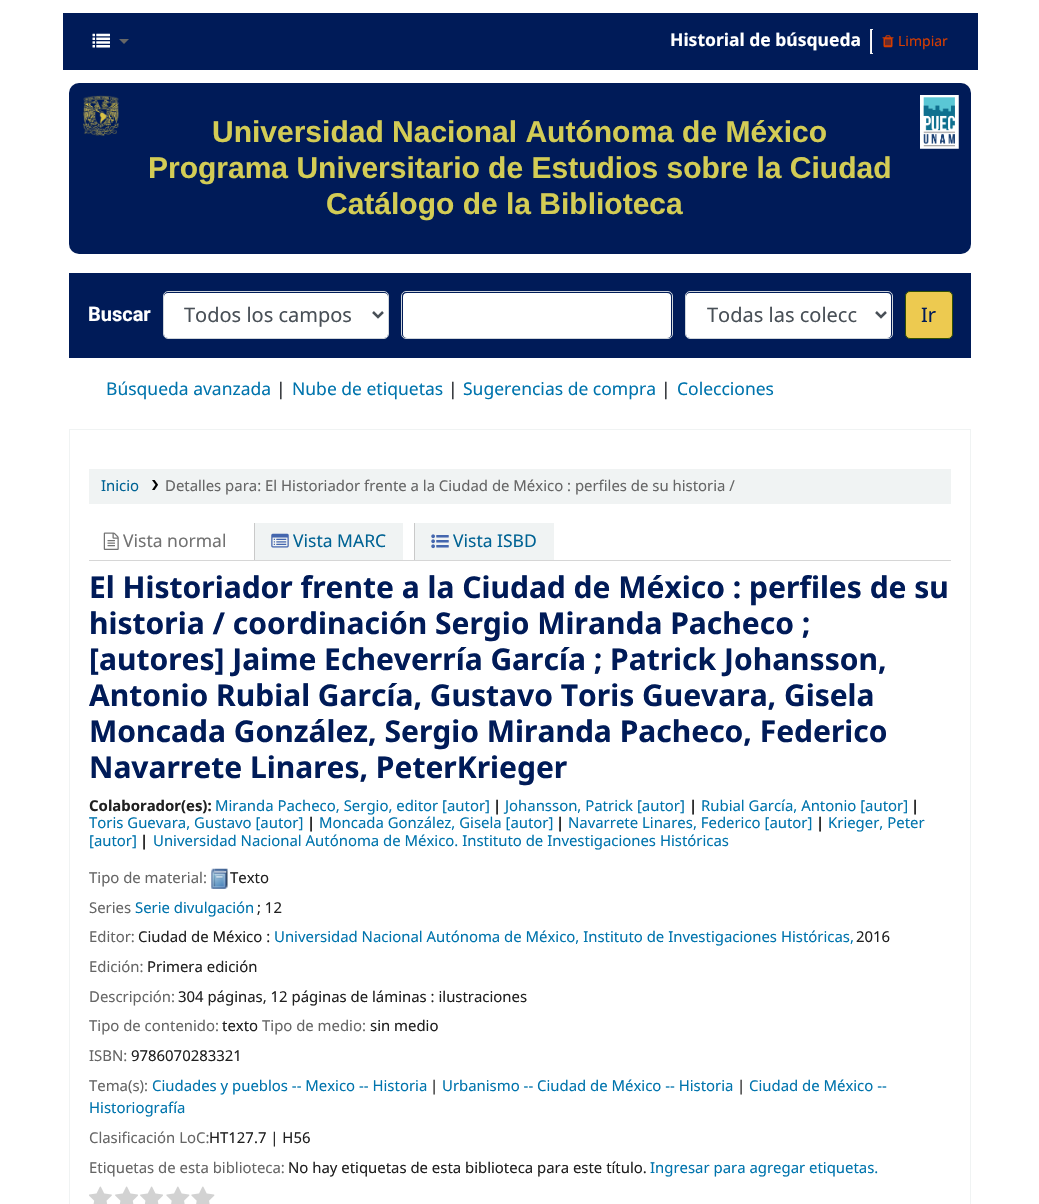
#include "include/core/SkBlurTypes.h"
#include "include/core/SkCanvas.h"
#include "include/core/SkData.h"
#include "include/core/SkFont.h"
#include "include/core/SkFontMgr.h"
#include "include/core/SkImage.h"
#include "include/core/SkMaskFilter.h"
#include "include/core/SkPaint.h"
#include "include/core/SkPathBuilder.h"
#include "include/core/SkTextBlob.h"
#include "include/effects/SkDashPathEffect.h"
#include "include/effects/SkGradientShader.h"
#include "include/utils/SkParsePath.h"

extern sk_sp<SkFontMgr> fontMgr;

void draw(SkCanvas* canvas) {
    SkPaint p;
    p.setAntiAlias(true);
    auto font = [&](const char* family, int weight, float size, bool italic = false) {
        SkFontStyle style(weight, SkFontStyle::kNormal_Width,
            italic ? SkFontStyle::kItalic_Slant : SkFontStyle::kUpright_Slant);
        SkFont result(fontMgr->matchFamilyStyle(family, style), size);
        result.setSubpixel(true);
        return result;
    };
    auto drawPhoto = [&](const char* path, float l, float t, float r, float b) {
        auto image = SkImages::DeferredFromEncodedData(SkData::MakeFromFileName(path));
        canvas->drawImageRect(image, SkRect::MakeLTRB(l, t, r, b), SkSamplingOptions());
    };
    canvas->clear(0xFFFFFFFF);
    p.setColor(0xFF001B58);
    canvas->drawRect(SkRect::MakeLTRB(63, 13, 978, 70), p);
    drawPhoto("media/1.png", 92, 33, 110, 48);
    p.setColor(0xFF666666);
    canvas->drawPath(SkPathBuilder().moveTo(119, 39).lineTo(129, 39).lineTo(124, 44).close().detach(), p);
    auto font1 = font("Noto Sans", 700, 17.5f);
    p.setColor(0xFFFFFFFF);
    canvas->drawString("Historial de búsqueda", 670, 46, font1, p);
    {
        const struct { float l, t, r, b; SkColor color; } items[] = {
            {870, 29, 873, 30, 0xFFEEEEEE},
            {871, 29, 872, 54, 0xFFFCF9FC},
            {870, 53, 873, 54, 0xFFEEEEEE},
            {870, 29, 871, 54, 0xFFEEEEEE},
        };
        for (auto [l, t, r, b, color] : items) {
            p.setColor(color);
            canvas->drawRect(SkRect::MakeLTRB(l, t, r, b), p);
        }
    }
    drawPhoto("media/2.png", 882, 35, 894, 48);
    auto font2 = font("Noto Sans", 400, 14);
    p.setColor(0xFFD43C00);
    canvas->drawString("Limpiar", 898, 46, font2, p);
    p.setColor(0xFF001B58);
    canvas->drawRoundRect(SkRect::MakeLTRB(69, 83, 971, 254), 10, 10, p);
    drawPhoto("media/3.png", 83, 95, 119, 136);
    auto font3 = font("Liberation Sans", 700, 30);
    p.setColor(0xFFD3CC55);
    {
        const struct { const char* s; float x, y; } items[] = {
            {"Universidad Nacional Autónoma de México", 212, 142},
            {"Programa Universitario de Estudios sobre la Ciudad", 148, 178},
            {"Catálogo de la Biblioteca", 326, 214},
        };
        for (auto [s, x, y] : items) {
            canvas->drawString(s, x, y, font3, p);
        }
    }
    drawPhoto("media/4.png", 920, 95, 959, 149);
    p.setColor(0xFF001B58);
    canvas->drawRect(SkRect::MakeLTRB(69, 273, 971, 358), p);
    auto font4 = font("Roboto", 700, 20);
    p.setColor(0xFFFFFFFF);
    canvas->drawString("Buscar", 88, 321, font4, p);
    canvas->drawRoundRect(SkRect::MakeLTRB(164, 293, 388, 338), 4, 4, p);
    p.setStyle(SkPaint::kStroke_Style);
    p.setStrokeWidth(1);
    p.setColor(0xFFCED4DA);
    canvas->drawRoundRect(SkRect::MakeLTRB(163.5f, 291.5f, 388.5f, 338.5f), 4.5f, 4.5f, p);
    p.setStrokeWidth(2.5f);
    p.setColor(0xFF495057);
    canvas->drawPath(SkPathBuilder().moveTo(373, 312).lineTo(378, 317).lineTo(383, 312).detach(), p);
    auto font5 = font("Noto Sans", 400, 20);
    p.setStyle(SkPaint::kFill_Style);
    canvas->drawString("Todos los campos", 184, 322, font5, p);
    p.setColor(0xFFFFFFFF);
    canvas->drawRoundRect(SkRect::MakeLTRB(403, 293, 671, 338), 4, 4, p);
    p.setStyle(SkPaint::kStroke_Style);
    p.setStrokeWidth(1);
    p.setColor(0xFFCED4DA);
    canvas->drawRoundRect(SkRect::MakeLTRB(401.5f, 291.5f, 672.5f, 338.5f), 4.5f, 4.5f, p);
    p.setStyle(SkPaint::kFill_Style);
    p.setColor(0xFFFFFFFF);
    canvas->drawRoundRect(SkRect::MakeLTRB(686, 293, 891, 338), 4, 4, p);
    p.setStyle(SkPaint::kStroke_Style);
    p.setColor(0xFFCED4DA);
    canvas->drawRoundRect(SkRect::MakeLTRB(685.5f, 291.5f, 892.5f, 338.5f), 4.5f, 4.5f, p);
    p.setStrokeWidth(2.5f);
    p.setColor(0xFF495057);
    canvas->drawPath(SkPathBuilder().moveTo(876, 312).lineTo(881, 317).lineTo(886, 312).detach(), p);
    p.setStyle(SkPaint::kFill_Style);
    canvas->drawString("Todas las colecc", 707, 322, font5, p);
    p.setColor(0xFFEDCA50);
    canvas->drawRoundRect(SkRect::MakeLTRB(905.5f, 291.5f, 952.5f, 338.5f), 4.5f, 4.5f, p);
    p.setStyle(SkPaint::kStroke_Style);
    p.setStrokeWidth(1);
    p.setColor(0xFF335000);
    canvas->drawRoundRect(SkRect::MakeLTRB(905.5f, 291.5f, 952.5f, 338.5f), 4.5f, 4.5f, p);
    p.setStyle(SkPaint::kFill_Style);
    p.setColor(0xFF001B58);
    canvas->drawString("Ir", 921, 322, font5, p);
    auto font6 = font("Noto Sans", 400, 17.5f);
    p.setColor(0xFF0074AD);
    canvas->drawString("Búsqueda avanzada", 106, 395, font6, p);
    p.setColor(0xFF212529);
    canvas->drawString("|", 276, 395, font6, p);
    p.setColor(0xFF0074AD);
    canvas->drawString("Nube de etiquetas", 292, 395, font6, p);
    p.setColor(0xFF212529);
    canvas->drawString("|", 448, 395, font6, p);
    p.setColor(0xFF0074AD);
    canvas->drawString("Sugerencias de compra", 463, 395, font6, p);
    p.setColor(0xFF212529);
    canvas->drawString("|", 661, 395, font6, p);
    p.setColor(0xFF0074AD);
    canvas->drawString("Colecciones", 677, 395, font6, p);
    p.setStyle(SkPaint::kStroke_Style);
    p.setColor(0xFFF0F3F3);
    canvas->drawRect(SkRect::MakeLTRB(69.5f, 429.5f, 970.5f, 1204.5f), p);
    p.setStyle(SkPaint::kFill_Style);
    canvas->drawRect(SkRect::MakeLTRB(89, 469, 951, 504), p);
    auto font7 = font("Noto Sans", 400, 14.9f);
    p.setColor(0xFF006394);
    canvas->drawString("Inicio", 101, 491, font7, p);
    drawPhoto("media/5.png", 152, 480, 158, 490);
    p.setColor(0xFF666666);
    canvas->drawString("Detalles para: El Historiador frente a la Ciudad de México : perfiles de su historia /", 165, 491, font7, p);
    p.setColor(0xFFD6D6D6);
    canvas->drawRect(SkRect::MakeLTRB(89, 560, 951, 561), p);
    drawPhoto("media/6.png", 103, 532, 119, 550);
    p.setColor(0xFF727272);
    canvas->drawString("Vista normal", 123, 547, font6, p);
    p.setColor(0xFFF0F3F3);
    canvas->drawRect(SkRect::MakeLTRB(255, 523, 403, 560), p);
    p.setColor(0xFFC9C9C9);
    canvas->drawRect(SkRect::MakeLTRB(254, 523, 255, 560), p);
    drawPhoto("media/7.png", 271, 533, 289, 548);
    p.setColor(0xFF006394);
    canvas->drawString("Vista MARC", 293, 547, font6, p);
    p.setColor(0xFFF0F3F3);
    canvas->drawRect(SkRect::MakeLTRB(415, 523, 554, 560), p);
    p.setColor(0xFFC9C9C9);
    canvas->drawRect(SkRect::MakeLTRB(414, 523, 415, 560), p);
    drawPhoto("media/8.png", 431, 534, 449, 549);
    p.setColor(0xFF006394);
    canvas->drawString("Vista ISBD", 453, 547, font6, p);
    auto font8 = font("Noto Sans", 700, 30);
    p.setColor(0xFF001B58);
    {
        const struct { const char* s; float x, y; } items[] = {
            {"El Historiador frente a la Ciudad de México : perfiles de su", 89, 598},
            {"historia / coordinación Sergio Miranda Pacheco ;", 89, 634},
            {"[autores] Jaime Echeverría García ; Patrick Johansson,", 89, 670},
            {"Antonio Rubial García, Gustavo Toris Guevara, Gisela", 89, 706},
            {"Moncada González, Sergio Miranda Pacheco, Federico", 89, 742},
            {"Navarrete Linares, PeterKrieger", 89, 778},
        };
        for (auto [s, x, y] : items) {
            canvas->drawString(s, x, y, font8, p);
        }
    }
    auto font9 = font("Noto Sans", 700, 14.9f);
    p.setColor(0xFF202020);
    canvas->drawString("Colaborador(es):", 89, 811, font9, p);
    p.setColor(0xFF0074AD);
    canvas->drawString("Miranda Pacheco, Sergio, editor [autor]", 215, 811, font7, p);
    p.setColor(0xFF202020);
    canvas->drawString("|", 493, 811, font9, p);
    p.setColor(0xFF0074AD);
    canvas->drawString("Johansson, Patrick [autor]", 505, 811, font7, p);
    p.setColor(0xFF202020);
    canvas->drawString("|", 689, 811, font9, p);
    p.setColor(0xFF0074AD);
    canvas->drawString("Rubial García, Antonio [autor]", 701, 811, font7, p);
    p.setColor(0xFF202020);
    canvas->drawString("|", 911, 811, font9, p);
    p.setColor(0xFF0074AD);
    canvas->drawString("Toris Guevara, Gustavo [autor]", 89, 828, font7, p);
    p.setColor(0xFF202020);
    canvas->drawString("|", 307, 828, font9, p);
    p.setColor(0xFF0074AD);
    canvas->drawString("Moncada González, Gisela [autor]", 319, 828, font7, p);
    p.setColor(0xFF202020);
    canvas->drawString("|", 556, 828, font9, p);
    p.setColor(0xFF0074AD);
    canvas->drawString("Navarrete Linares, Federico [autor]", 568, 828, font7, p);
    p.setColor(0xFF202020);
    canvas->drawString("|", 816, 828, font9, p);
    p.setColor(0xFF0074AD);
    canvas->drawString("Krieger, Peter", 828, 828, font7, p);
    canvas->drawString("[autor]", 89, 846, font7, p);
    p.setColor(0xFF202020);
    canvas->drawString("|", 140, 846, font9, p);
    p.setColor(0xFF0074AD);
    canvas->drawString("Universidad Nacional Autónoma de México. Instituto de Investigaciones Históricas", 153, 846, font7, p);
    p.setColor(0xFF666666);
    canvas->drawString("Tipo de material:", 89, 883, font7, p);
    drawPhoto("media/9.png", 211, 868, 228, 889);
    p.setColor(0xFF202020);
    canvas->drawString("Texto", 230, 883, font7, p);
    p.setColor(0xFF666666);
    canvas->drawString("Series", 89, 913, font7, p);
    p.setColor(0xFF0074AD);
    canvas->drawString("Serie divulgación", 135, 913, font7, p);
    p.setColor(0xFF202020);
    canvas->drawString("; 12", 257, 913, font7, p);
    p.setColor(0xFF666666);
    canvas->drawString("Editor:", 89, 942, font7, p);
    p.setColor(0xFF202020);
    canvas->drawString("Ciudad de México :", 138, 942, font7, p);
    p.setColor(0xFF0074AD);
    canvas->drawString("Universidad Nacional Autónoma de México, Instituto de Investigaciones Históricas,", 274, 942, font7, p);
    p.setColor(0xFF202020);
    canvas->drawString("2016", 856, 942, font7, p);
    p.setColor(0xFF666666);
    canvas->drawString("Edición:", 89, 972, font7, p);
    p.setColor(0xFF202020);
    canvas->drawString("Primera edición", 147, 972, font7, p);
    p.setColor(0xFF666666);
    canvas->drawString("Descripción:", 89, 1002, font7, p);
    p.setColor(0xFF202020);
    canvas->drawString("304 páginas, 12 páginas de láminas : ilustraciones", 178, 1002, font7, p);
    p.setColor(0xFF666666);
    canvas->drawString("Tipo de contenido:", 89, 1031, font7, p);
    p.setColor(0xFF202020);
    canvas->drawString("texto", 222, 1031, font7, p);
    p.setColor(0xFF666666);
    canvas->drawString("Tipo de medio:", 262, 1031, font7, p);
    p.setColor(0xFF202020);
    canvas->drawString("sin medio", 370, 1031, font7, p);
    p.setColor(0xFF666666);
    canvas->drawString("ISBN:", 89, 1061, font7, p);
    p.setColor(0xFF202020);
    canvas->drawString("9786070283321", 131, 1061, font7, p);
    p.setColor(0xFF666666);
    canvas->drawString("Tema(s):", 89, 1091, font7, p);
    p.setColor(0xFF0074AD);
    canvas->drawString("Ciudades y pueblos -- Mexico -- Historia", 152, 1091, font7, p);
    p.setColor(0xFF202020);
    canvas->drawString("|", 430, 1091, font7, p);
    p.setColor(0xFF0074AD);
    canvas->drawString("Urbanismo -- Ciudad de México -- Historia", 442, 1091, font7, p);
    p.setColor(0xFF202020);
    canvas->drawString("|", 737, 1091, font7, p);
    p.setColor(0xFF0074AD);
    canvas->drawString("Ciudad de México --", 749, 1091, font7, p);
    canvas->drawString("Historiografía", 89, 1113, font7, p);
    p.setColor(0xFF666666);
    canvas->drawString("Clasificación LoC:", 89, 1143, font7, p);
    p.setColor(0xFF202020);
    canvas->drawString("HT127.7 | H56", 209, 1143, font7, p);
    p.setColor(0xFF666666);
    canvas->drawString("Etiquetas de esta biblioteca:", 89, 1173, font7, p);
    p.setColor(0xFF202020);
    canvas->drawString("No hay etiquetas de esta biblioteca para este título.", 288, 1173, font7, p);
    p.setColor(0xFF0074AD);
    canvas->drawString("Ingresar para agregar etiquetas.", 650, 1173, font7, p);
    drawPhoto("media/10.png", 89, 1186, 112, 1204);
    drawPhoto("media/11.png", 115, 1186, 138, 1204);
    drawPhoto("media/11.png", 140, 1186, 163, 1204);
    drawPhoto("media/12.png", 166, 1186, 190, 1204);
    drawPhoto("media/12.png", 191, 1186, 215, 1204);
}
